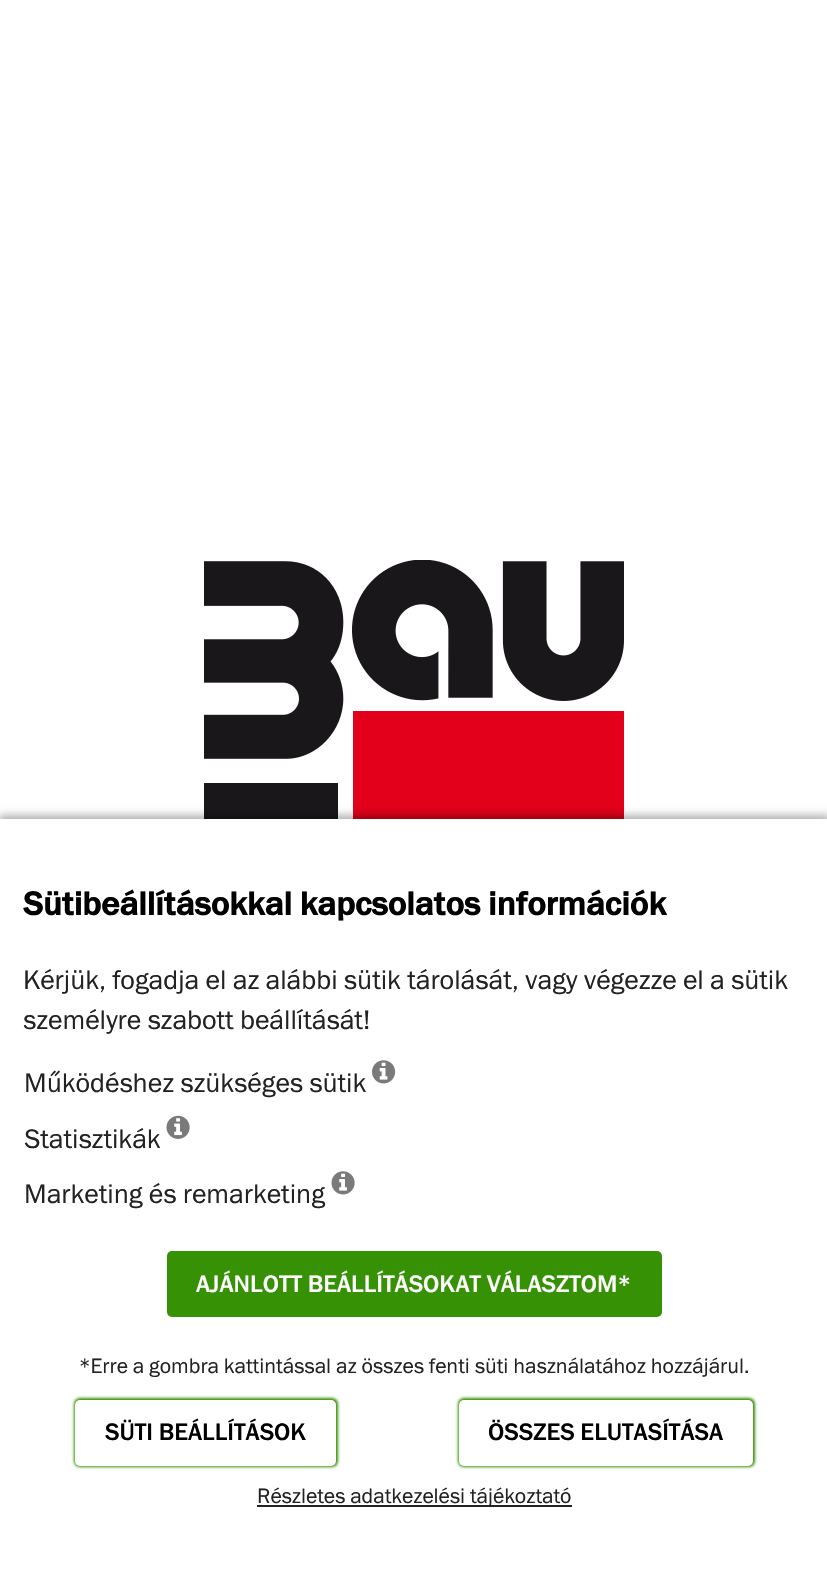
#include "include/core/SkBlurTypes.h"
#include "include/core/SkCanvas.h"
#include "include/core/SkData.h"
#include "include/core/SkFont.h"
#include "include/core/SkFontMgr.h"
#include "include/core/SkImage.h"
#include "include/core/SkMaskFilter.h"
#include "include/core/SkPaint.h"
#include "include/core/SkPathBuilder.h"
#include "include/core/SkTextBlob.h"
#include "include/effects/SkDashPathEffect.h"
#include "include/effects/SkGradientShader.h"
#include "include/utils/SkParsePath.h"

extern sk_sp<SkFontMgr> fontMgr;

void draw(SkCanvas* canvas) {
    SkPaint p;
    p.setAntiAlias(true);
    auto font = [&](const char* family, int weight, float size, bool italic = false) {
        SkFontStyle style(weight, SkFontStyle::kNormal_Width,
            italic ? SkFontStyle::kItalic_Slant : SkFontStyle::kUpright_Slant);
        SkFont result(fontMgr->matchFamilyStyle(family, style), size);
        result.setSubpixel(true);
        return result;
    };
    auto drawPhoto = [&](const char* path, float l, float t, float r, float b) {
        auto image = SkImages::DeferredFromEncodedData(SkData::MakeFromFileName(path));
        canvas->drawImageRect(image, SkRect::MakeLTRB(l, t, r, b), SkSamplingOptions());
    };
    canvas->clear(0xFFFFFFFF);
    drawPhoto("media/1.png", 204, 560, 624, 819);
    p.setColor(0x4D000000);
    p.setMaskFilter(SkMaskFilter::MakeBlur(kNormal_SkBlurStyle, 4));
    canvas->drawRect(SkRect::MakeLTRB(-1, 815, 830, 1571), p);
    p.setMaskFilter(nullptr);
    p.setColor(0xFFFFFFFF);
    canvas->drawRect(SkRect::MakeLTRB(0, 819, 827, 1571), p);
    auto font1 = font("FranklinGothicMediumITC", 700, 33);
    p.setColor(0xFF000000);
    canvas->drawString("Sütibeállításokkal kapcsolatos információk", 23, 915, font1, p);
    auto font2 = font("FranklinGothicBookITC", 400, 27);
    p.setColor(0xFF222222);
    {
        const struct { const char* s; float x, y; } items[] = {
            {"Kérjük, fogadja el az alábbi sütik tárolását, vagy végezze el a sütik", 23, 989},
            {"személyre szabott beállítását!", 23, 1029},
            {"Működéshez szükséges sütik", 24, 1092},
        };
        for (auto [s, x, y] : items) {
            canvas->drawString(s, x, y, font2, p);
        }
    }
    drawPhoto("media/2.png", 372, 1060, 396, 1084);
    canvas->drawString("Statisztikák", 24, 1148, font2, p);
    drawPhoto("media/3.png", 166, 1115, 190, 1139);
    canvas->drawString("Marketing és remarketing", 24, 1203, font2, p);
    drawPhoto("media/4.png", 331, 1171, 355, 1195);
    p.setColor(0xFF369105);
    canvas->drawRoundRect(SkRect::MakeLTRB(167, 1251, 662, 1317), 5, 5, p);
    auto font3 = font("FranklinGothicMediumITC", 500, 24);
    p.setColor(0xFFFFFFFF);
    canvas->drawString("AJÁNLOTT BEÁLLÍTÁSOKAT VÁLASZTOM*", 196, 1292, font3, p);
    auto font4 = font("FranklinGothicBookITC", 400, 21);
    p.setColor(0xFF222222);
    canvas->drawString("*Erre a gombra kattintással az összes fenti süti használatához hozzájárul.", 79, 1373, font4, p);
    p.setColor(0xFF369105);
    p.setMaskFilter(SkMaskFilter::MakeBlur(kNormal_SkBlurStyle, 1.5f));
    canvas->drawRoundRect(SkRect::MakeLTRB(74, 1398, 338, 1467), 6, 6, p);
    p.setMaskFilter(nullptr);
    p.setColor(0xFFFFFFFF);
    canvas->drawRoundRect(SkRect::MakeLTRB(75, 1400, 336, 1466), 5, 5, p);
    p.setColor(0xFF000000);
    canvas->drawString("SÜTI BEÁLLÍTÁSOK", 105, 1440, font3, p);
    p.setColor(0xFF369105);
    p.setMaskFilter(SkMaskFilter::MakeBlur(kNormal_SkBlurStyle, 1.5f));
    canvas->drawRoundRect(SkRect::MakeLTRB(458, 1398, 755, 1467), 6, 6, p);
    p.setMaskFilter(nullptr);
    p.setColor(0xFFFFFFFF);
    canvas->drawRoundRect(SkRect::MakeLTRB(459, 1400, 753, 1466), 5, 5, p);
    p.setColor(0xFF000000);
    canvas->drawString("ÖSSZES ELUTASÍTÁSA", 488, 1440, font3, p);
    p.setColor(0xFF222222);
    canvas->drawRect(SkRect::MakeLTRB(257, 1505, 572, 1507), p);
    canvas->drawString("Részletes adatkezelési tájékoztató", 257, 1503, font4, p);
}
